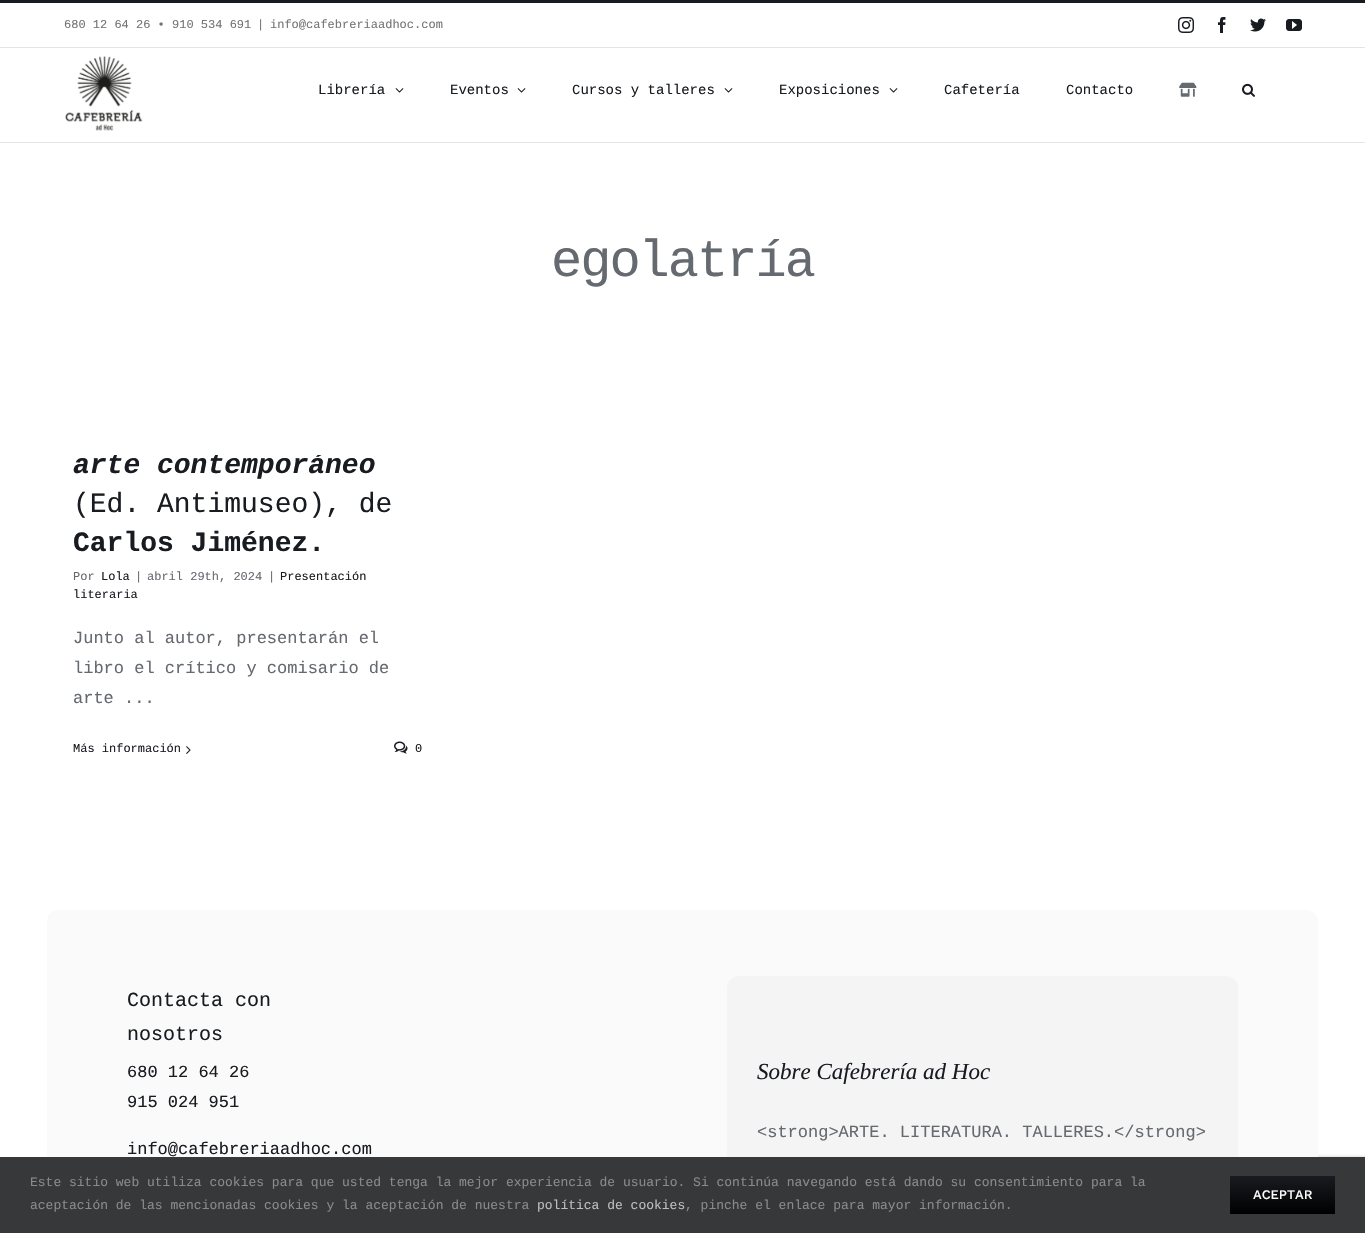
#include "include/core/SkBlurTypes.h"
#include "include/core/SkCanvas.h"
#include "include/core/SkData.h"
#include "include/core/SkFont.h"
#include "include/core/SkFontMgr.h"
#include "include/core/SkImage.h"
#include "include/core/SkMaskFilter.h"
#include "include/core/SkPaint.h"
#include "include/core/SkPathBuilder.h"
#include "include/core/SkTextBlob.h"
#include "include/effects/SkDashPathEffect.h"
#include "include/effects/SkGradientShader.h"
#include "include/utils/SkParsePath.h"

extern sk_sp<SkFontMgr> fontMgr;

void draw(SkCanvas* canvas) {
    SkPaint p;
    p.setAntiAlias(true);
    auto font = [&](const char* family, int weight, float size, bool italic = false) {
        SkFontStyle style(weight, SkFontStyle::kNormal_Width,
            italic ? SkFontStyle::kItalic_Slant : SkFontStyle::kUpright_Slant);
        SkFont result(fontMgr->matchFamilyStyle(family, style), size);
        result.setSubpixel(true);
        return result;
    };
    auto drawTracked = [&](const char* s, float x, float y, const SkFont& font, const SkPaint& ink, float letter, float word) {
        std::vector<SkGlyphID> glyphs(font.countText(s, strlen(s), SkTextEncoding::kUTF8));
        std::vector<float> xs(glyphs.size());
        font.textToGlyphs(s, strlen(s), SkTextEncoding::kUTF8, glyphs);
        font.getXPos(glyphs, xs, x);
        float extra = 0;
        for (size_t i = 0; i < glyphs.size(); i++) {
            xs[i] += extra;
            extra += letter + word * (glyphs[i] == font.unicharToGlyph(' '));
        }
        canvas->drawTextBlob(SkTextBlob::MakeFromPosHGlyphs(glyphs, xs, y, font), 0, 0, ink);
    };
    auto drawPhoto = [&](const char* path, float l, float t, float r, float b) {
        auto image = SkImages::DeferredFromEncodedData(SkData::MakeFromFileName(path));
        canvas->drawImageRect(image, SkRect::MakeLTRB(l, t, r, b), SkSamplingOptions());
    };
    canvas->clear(0xFFFFFFFF);
    p.setColor(0xFF181B20);
    canvas->drawRect(SkRect::MakeLTRB(0, 0, 1365, 3), p);
    p.setColor(0xFFE5E5E5);
    canvas->drawRect(SkRect::MakeLTRB(0, 47, 1365, 48), p);
    auto font1 = font("Liberation Mono", 400, 12);
    p.setColor(0xFF747474);
    {
        const struct { const char* s; float x, y; } items[] = {
            {"680 12 64 26 • 910 534 691", 64, 28},
            {"|", 257, 28},
            {"info@cafebreriaadhoc.com", 270, 28},
        };
        for (auto [s, x, y] : items) {
            canvas->drawString(s, x, y, font1, p);
        }
    }
    drawPhoto("media/1.png", 1178, 17, 1194, 33);
    drawPhoto("media/2.png", 1218, 17, 1226, 33);
    drawPhoto("media/3.png", 1250, 18, 1266, 32);
    drawPhoto("media/4.png", 1286, 19, 1302, 31);
    p.setColor(0xFFE5E5E5);
    canvas->drawRect(SkRect::MakeLTRB(0, 142, 1365, 143), p);
    drawPhoto("media/5.png", 65, 56, 143, 131);
    auto font2 = font("Liberation Mono", 400, 14);
    p.setColor(0xFF181B20);
    canvas->drawString("Librería", 318, 94, font2, p);
    drawPhoto("media/6.png", 395, 88, 404, 93);
    canvas->drawString("Eventos", 450, 94, font2, p);
    drawPhoto("media/6.png", 517, 88, 526, 93);
    canvas->drawString("Cursos y talleres", 572, 94, font2, p);
    drawPhoto("media/6.png", 724, 88, 733, 93);
    canvas->drawString("Exposiciones", 779, 94, font2, p);
    drawPhoto("media/6.png", 889, 88, 898, 93);
    canvas->drawString("Cafetería", 944, 94, font2, p);
    canvas->drawString("Contacto", 1066, 94, font2, p);
    drawPhoto("media/7.png", 1179, 82, 1197, 97);
    drawPhoto("media/8.png", 1242, 83, 1255, 97);
    auto font3 = font("Liberation Mono", 400, 52);
    p.setColor(0xFF656A70);
    drawTracked("egolatría", 551, 276, font3, p, -2, 0);
    canvas->save();
    canvas->clipRect(SkRect::MakeLTRB(48, 455, 447, 785));
    auto font4 = font("Liberation Mono", 700, 28, true);
    p.setColor(0xFF181B20);
    canvas->drawString("arte contemporáneo", 73, 473, font4, p);
    canvas->restore();
    auto font5 = font("Liberation Mono", 400, 28);
    canvas->drawString("(Ed. Antimuseo), de", 73, 512, font5, p);
    auto font6 = font("Liberation Mono", 700, 28);
    canvas->drawString("Carlos Jiménez.", 73, 551, font6, p);
    p.setColor(0xFF656A70);
    canvas->drawString("Por", 73, 580, font1, p);
    p.setColor(0xFF181B20);
    canvas->drawString("Lola", 101, 580, font1, p);
    p.setColor(0xFF656A70);
    {
        const struct { const char* s; float x, y; } items[] = {
            {"|", 135, 580},
            {"abril 29th, 2024", 147, 580},
            {"|", 268, 580},
        };
        for (auto [s, x, y] : items) {
            canvas->drawString(s, x, y, font1, p);
        }
    }
    p.setColor(0xFF181B20);
    canvas->drawString("Presentación", 280, 580, font1, p);
    canvas->drawString("literaria", 73, 598, font1, p);
    auto font7 = font("Liberation Mono", 400, 17);
    p.setColor(0xFF656A70);
    {
        const struct { const char* s; float x, y; } items[] = {
            {"Junto al autor, presentarán el", 73, 643},
            {"libro el crítico y comisario de", 73, 673},
            {"arte ...", 73, 703},
        };
        for (auto [s, x, y] : items) {
            canvas->drawString(s, x, y, font7, p);
        }
    }
    p.setColor(0xFF181B20);
    canvas->drawString("Más información", 73, 752, font1, p);
    drawPhoto("media/9.png", 186, 746, 191, 754);
    drawPhoto("media/10.png", 394, 741, 408, 754);
    canvas->drawString("0", 415, 752, font1, p);
    p.setColor(0xFF808080);
    p.setMaskFilter(SkMaskFilter::MakeBlur(kNormal_SkBlurStyle, 2.5f));
    canvas->drawRoundRect(SkRect::MakeLTRB(1295, 1159, 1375, 1219), 2, 2, p);
    p.setMaskFilter(nullptr);
    p.setColor(0xFFFAFAFA);
    canvas->drawRoundRect(SkRect::MakeLTRB(47, 910, 1318, 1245), 12, 12, p);
    auto font8 = font("Liberation Mono", 400, 20);
    p.setColor(0xFF181B20);
    canvas->drawString("Contacta con", 127, 1006, font8, p);
    canvas->drawString("nosotros", 127, 1040, font8, p);
    {
        const struct { const char* s; float x, y; } items[] = {
            {"680 12 64 26", 127, 1077},
            {"915 024 951", 127, 1107},
            {"info@cafebreriaadhoc.com", 127, 1154},
        };
        for (auto [s, x, y] : items) {
            canvas->drawString(s, x, y, font7, p);
        }
    }
    p.setColor(0xFFF4F4F4);
    canvas->drawRoundRect(SkRect::MakeLTRB(727, 976, 1238, 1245), 12, 12, p);
    auto font9 = font("Liberation Serif", 400, 23, true);
    p.setColor(0xFF181B20);
    canvas->drawString("Sobre Cafebrería ad Hoc", 757, 1079, font9, p);
    p.setColor(0xFF656A70);
    canvas->drawString("<strong>ARTE. LITERATURA. TALLERES.</strong>", 757, 1137, font7, p);
    p.setColor(0xFF363839);
    canvas->drawRect(SkRect::MakeLTRB(0, 1157, 1365, 1233), p);
    auto font10 = font("Liberation Mono", 400, 13);
    p.setColor(0xFF8C8989);
    canvas->drawString("Este sitio web utiliza cookies para que usted tenga la mejor experiencia de usuario. Si continúa navegando está dando su consentimiento para la", 30, 1186, font10, p);
    canvas->drawString("aceptación de las mencionadas cookies y la aceptación de nuestra", 30, 1209, font10, p);
    p.setColor(0xFFBFBFBF);
    canvas->drawString("política de cookies", 537, 1209, font10, p);
    p.setColor(0xFF8C8989);
    canvas->drawString(", pinche el enlace para mayor información.", 685, 1209, font10, p);
    {
        const SkColor colors[] = {0xFF000000, 0xFF181B20};
        const float stops[] = {0, 1};
        const SkPoint ends[] = {{1283, 1214}, {1283, 1176}};
        p.setShader(SkGradientShader::MakeLinear(ends, colors, stops, 2, SkTileMode::kClamp));
        p.setAlpha(255);
    }
    canvas->drawRect(SkRect::MakeLTRB(1230, 1176, 1335, 1214), p);
    auto font11 = font("Work Sans", 500, 13);
    p.setShader(nullptr);
    p.setColor(0xFFFFFFFF);
    canvas->drawString("ACEPTAR", 1253, 1199, font11, p);
}
